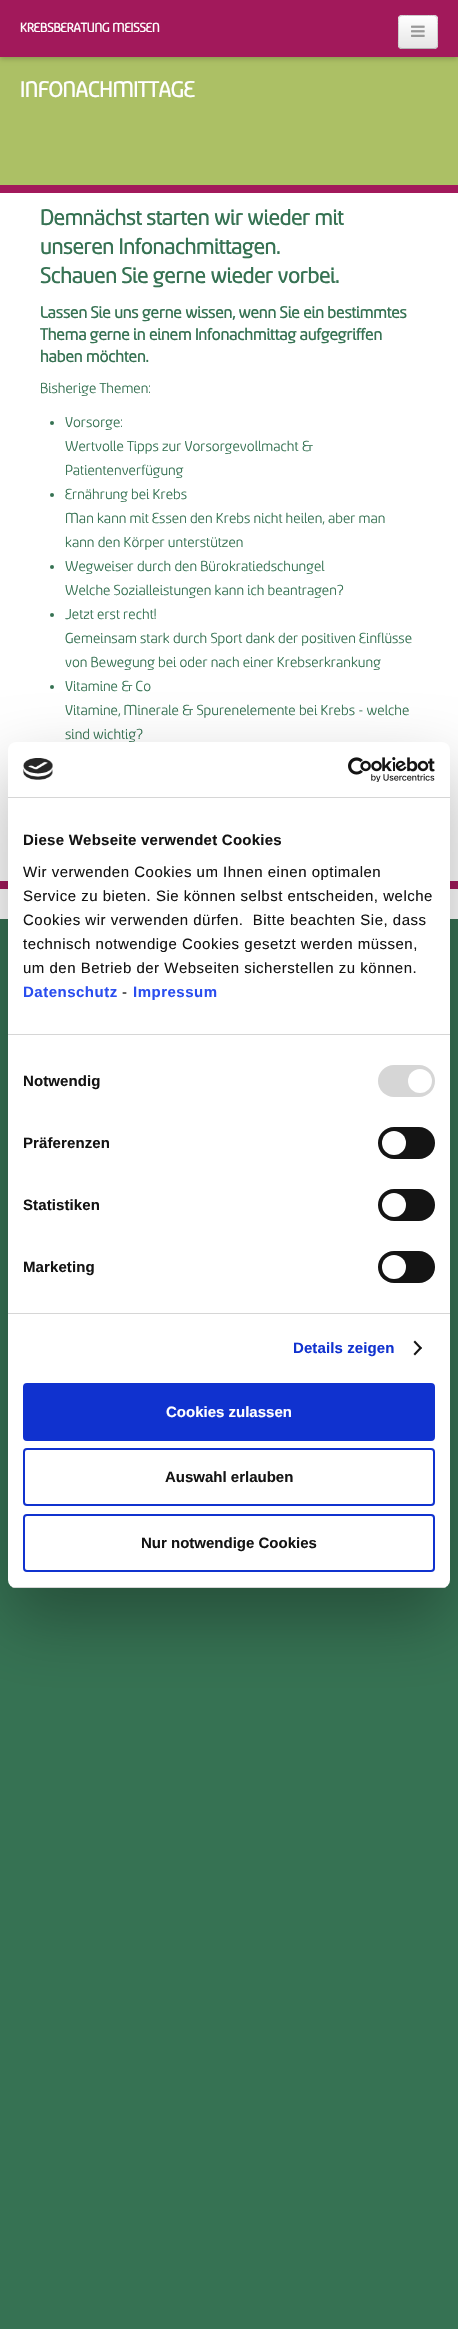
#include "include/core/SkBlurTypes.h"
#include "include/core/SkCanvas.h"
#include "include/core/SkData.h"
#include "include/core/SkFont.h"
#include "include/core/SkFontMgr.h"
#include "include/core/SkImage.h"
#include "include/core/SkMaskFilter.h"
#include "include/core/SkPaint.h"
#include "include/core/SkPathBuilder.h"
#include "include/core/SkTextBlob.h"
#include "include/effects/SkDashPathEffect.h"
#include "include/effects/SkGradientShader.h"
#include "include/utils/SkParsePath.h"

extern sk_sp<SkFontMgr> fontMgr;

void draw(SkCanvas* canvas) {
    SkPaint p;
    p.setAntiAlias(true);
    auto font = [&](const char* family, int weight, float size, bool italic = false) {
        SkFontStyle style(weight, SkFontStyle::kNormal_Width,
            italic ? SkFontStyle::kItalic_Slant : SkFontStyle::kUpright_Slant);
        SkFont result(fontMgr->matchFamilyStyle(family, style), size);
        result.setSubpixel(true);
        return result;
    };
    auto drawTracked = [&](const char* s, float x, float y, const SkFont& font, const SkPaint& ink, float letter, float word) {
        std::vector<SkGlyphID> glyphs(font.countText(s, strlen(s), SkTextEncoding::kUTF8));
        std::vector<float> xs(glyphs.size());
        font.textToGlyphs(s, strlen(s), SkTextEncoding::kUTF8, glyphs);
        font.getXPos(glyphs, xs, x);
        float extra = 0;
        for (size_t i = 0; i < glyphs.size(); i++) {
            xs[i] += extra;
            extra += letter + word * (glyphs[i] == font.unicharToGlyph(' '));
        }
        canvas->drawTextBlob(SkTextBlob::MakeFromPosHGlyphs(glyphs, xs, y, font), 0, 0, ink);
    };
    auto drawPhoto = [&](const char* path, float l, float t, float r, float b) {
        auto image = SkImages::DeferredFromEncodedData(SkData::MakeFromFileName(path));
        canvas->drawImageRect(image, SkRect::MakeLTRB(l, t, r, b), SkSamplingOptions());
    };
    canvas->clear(0xFF367253);
    p.setColor(0xFFACC065);
    canvas->drawRect(SkRect::MakeLTRB(0, 57, 458, 185), p);
    p.setColor(0x33000000);
    p.setMaskFilter(SkMaskFilter::MakeBlur(kNormal_SkBlurStyle, 2.5f));
    canvas->drawRect(SkRect::MakeLTRB(0, 2, 458, 59), p);
    p.setMaskFilter(nullptr);
    p.setColor(0xFFA2195B);
    canvas->drawRect(SkRect::MakeLTRB(0, 0, 458, 57), p);
    auto font1 = font("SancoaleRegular", 700, 14);
    p.setColor(0xFFFFFFFF);
    canvas->drawString("KREBSBERATUNG MEISSEN", 20, 32, font1, p);
    p.setColor(0xFFF5F5F5);
    canvas->drawRoundRect(SkRect::MakeLTRB(398, 15, 438, 49), 4, 4, p);
    canvas->save();
    canvas->clipPath(SkPathBuilder().moveTo(402, 15).lineTo(434, 15).cubicTo(436, 15, 438, 17, 438, 19).lineTo(438, 45).cubicTo(438, 47, 436, 49, 434, 49).lineTo(402, 49).cubicTo(400, 49, 398, 47, 398, 45).lineTo(398, 19).cubicTo(398, 17, 400, 15, 402, 15).close().detach(), true);
    {
        const SkColor colors[] = {0xFFFFFFFF, 0xFFE6E6E6};
        const float stops[] = {0, 1};
        const SkPoint ends[] = {{418, 16}, {418, 48}};
        p.setShader(SkGradientShader::MakeLinear(ends, colors, stops, 2, SkTileMode::kClamp));
        p.setAlpha(255);
    }
    canvas->drawRect(SkRect::MakeLTRB(398, 16, 438, 48), p);
    canvas->restore();
    p.setStyle(SkPaint::kStroke_Style);
    p.setStrokeWidth(1);
    p.setShader(nullptr);
    p.setColor(0xFFB3B3B3);
    canvas->drawPath(SkPathBuilder().moveTo(436.5f, 47.5f).cubicTo(436, 48, 435, 48.5f, 434, 48.5f).lineTo(402, 48.5f).cubicTo(401, 48.5f, 400, 48, 399.5f, 47.5f).detach(), p);
    p.setColor(0xFFCCCCCC);
    canvas->drawPath(SkPathBuilder().moveTo(399.5f, 47.5f).cubicTo(398, 46, 398.5f, 42.5f, 398.5f, 40.5f).lineTo(398.5f, 23.5f).cubicTo(398.5f, 15, 399, 15.5f, 407.5f, 15.5f).lineTo(428.5f, 15.5f).cubicTo(437, 15.5f, 437.5f, 15, 437.5f, 23.5f).lineTo(437.5f, 40.5f).cubicTo(437.5f, 42.5f, 438, 46, 436.5f, 47.5f).detach(), p);
    drawPhoto("media/1.png", 411, 25, 425, 37);
    p.setStyle(SkPaint::kFill_Style);
    p.setColor(0xFFA2195B);
    canvas->drawRect(SkRect::MakeLTRB(0, 185, 458, 193), p);
    auto font2 = font("SancoaleRegular", 700, 24);
    p.setColor(0xFFFFFFFF);
    canvas->drawString("INFONACHMITTAGE", 20, 97, font2, p);
    canvas->drawRect(SkRect::MakeLTRB(0, 193, 458, 881), p);
    p.setColor(0xFFA2195B);
    canvas->drawRect(SkRect::MakeLTRB(0, 881, 458, 889), p);
    p.setColor(0xFF367253);
    {
        const struct { const char* s; float x, y; } items[] = {
            {"Demnächst starten wir wieder mit", 40, 225},
            {"unseren Infonachmittagen.", 40, 254},
            {"Schauen Sie gerne wieder vorbei.", 40, 283},
        };
        for (auto [s, x, y] : items) {
            canvas->drawString(s, x, y, font2, p);
        }
    }
    auto font3 = font("SancoaleRegular", 700, 18);
    {
        const struct { const char* s; float x, y; } items[] = {
            {"Lassen Sie uns gerne wissen, wenn Sie ein bestimmtes", 40, 318},
            {"Thema gerne in einem Infonachmittag aufgegriffen", 40, 340},
            {"haben möchten.", 40, 362},
        };
        for (auto [s, x, y] : items) {
            canvas->drawString(s, x, y, font3, p);
        }
    }
    auto font4 = font("SancoaleRegular", 400, 16);
    canvas->drawString("Bisherige Themen:", 40, 393, font4, p);
    canvas->drawCircle(52, 423, 2, p);
    {
        const struct { const char* s; float x, y; } items[] = {
            {"Vorsorge:", 65, 427},
            {"Wertvolle Tipps zur Vorsorgevollmacht &", 65, 451},
            {"Patientenverfügung", 65, 475},
        };
        for (auto [s, x, y] : items) {
            canvas->drawString(s, x, y, font4, p);
        }
    }
    canvas->drawCircle(52, 495, 2, p);
    {
        const struct { const char* s; float x, y; } items[] = {
            {"Ernährung bei Krebs", 65, 499},
            {"Man kann mit Essen den Krebs nicht heilen, aber man", 65, 523},
            {"kann den Körper unterstützen", 65, 547},
        };
        for (auto [s, x, y] : items) {
            canvas->drawString(s, x, y, font4, p);
        }
    }
    canvas->drawCircle(52, 567, 2, p);
    canvas->drawString("Wegweiser durch den Bürokratiedschungel", 65, 571, font4, p);
    canvas->drawString("Welche Sozialleistungen kann ich beantragen?", 65, 595, font4, p);
    canvas->drawCircle(52, 615, 2, p);
    {
        const struct { const char* s; float x, y; } items[] = {
            {"Jetzt erst recht!", 65, 619},
            {"Gemeinsam stark durch Sport dank der positiven Einflüsse", 65, 643},
            {"von Bewegung bei oder nach einer Krebserkrankung", 65, 667},
        };
        for (auto [s, x, y] : items) {
            canvas->drawString(s, x, y, font4, p);
        }
    }
    canvas->drawCircle(52, 687, 2, p);
    {
        const struct { const char* s; float x, y; } items[] = {
            {"Vitamine & Co", 65, 691},
            {"Vitamine, Minerale & Spurenelemente bei Krebs - welche", 65, 715},
            {"sind wichtig?", 65, 739},
        };
        for (auto [s, x, y] : items) {
            canvas->drawString(s, x, y, font4, p);
        }
    }
    p.setColor(0xFFFFFFFF);
    canvas->drawRect(SkRect::MakeLTRB(0, 889, 458, 919), p);
    p.setColor(0x4D000000);
    p.setMaskFilter(SkMaskFilter::MakeBlur(kNormal_SkBlurStyle, 34));
    canvas->drawRoundRect(SkRect::MakeLTRB(8, 774, 450, 1620), 8, 8, p);
    p.setMaskFilter(nullptr);
    p.setColor(0xFFFFFFFF);
    canvas->drawRoundRect(SkRect::MakeLTRB(8, 742, 450, 1588), 8, 8, p);
    p.setColor(0xFFD6D6D6);
    canvas->drawRect(SkRect::MakeLTRB(8, 797, 450, 798), p);
    drawPhoto("media/2.png", 23, 758, 53, 780);
    drawPhoto("media/3.png", 348, 757, 435, 782);
    canvas->drawRect(SkRect::MakeLTRB(8, 1034, 450, 1035), p);
    auto font5 = font("Liberation Sans", 700, 15);
    p.setColor(0xFF141414);
    drawTracked("Diese Webseite verwendet Cookies", 23, 845, font5, p, 0.25f, 0);
    auto font6 = font("Liberation Sans", 400, 15);
    {
        const struct { const char* s; float x, y; } items[] = {
            {"Wir verwenden Cookies um Ihnen einen optimalen", 23, 877},
            {"Service zu bieten. Sie können selbst entscheiden, welche", 23, 901},
            {"Cookies wir verwenden dürfen.  Bitte beachten Sie, dass", 23, 925},
            {"technisch notwendige Cookies gesetzt werden müssen,", 23, 949},
            {"um den Betrieb der Webseiten sicherstellen zu können.", 23, 973},
        };
        for (auto [s, x, y] : items) {
            drawTracked(s, x, y, font6, p, 0.5f, 0);
        }
    }
    p.setColor(0xFF2A4EEF);
    drawTracked("Datenschutz", 23, 997, font5, p, 0.5f, 0);
    p.setColor(0xFF141414);
    drawTracked("-", 122, 997, font6, p, 0.5f, 0);
    p.setColor(0xFF2A4EEF);
    drawTracked("Impressum", 133, 997, font5, p, 0.5f, 0);
    p.setColor(0xFFD6D6D6);
    canvas->drawRect(SkRect::MakeLTRB(8, 1313, 450, 1314), p);
    p.setColor(0xFF141414);
    drawTracked("Notwendig", 23, 1086, font5, p, 0.1f, 0);
    p.setColor(0xFFD6D6D6);
    canvas->drawRoundRect(SkRect::MakeLTRB(378, 1065, 435, 1097), 16, 16, p);
    p.setColor(0xFFFFFFFF);
    canvas->drawCircle(420, 1081, 12, p);
    p.setColor(0xFF141414);
    drawTracked("Präferenzen", 23, 1148, font5, p, 0.1f, 0);
    canvas->drawRoundRect(SkRect::MakeLTRB(378, 1127, 435, 1159), 16, 16, p);
    p.setColor(0xFFFFFFFF);
    canvas->drawCircle(394, 1143, 12, p);
    p.setColor(0xFF141414);
    drawTracked("Statistiken", 23, 1210, font5, p, 0.1f, 0);
    canvas->drawRoundRect(SkRect::MakeLTRB(378, 1189, 435, 1221), 16, 16, p);
    p.setColor(0xFFFFFFFF);
    canvas->drawCircle(394, 1205, 12, p);
    p.setColor(0xFF141414);
    drawTracked("Marketing", 23, 1272, font5, p, 0.1f, 0);
    canvas->drawRoundRect(SkRect::MakeLTRB(378, 1251, 435, 1283), 16, 16, p);
    p.setColor(0xFFFFFFFF);
    canvas->drawCircle(394, 1267, 12, p);
    p.setColor(0xFF1032CF);
    drawTracked("Details zeigen", 293, 1353, font5, p, 0.1f, 0);
    p.setColor(0xFF141414);
    canvas->drawPath(SkPathBuilder().moveTo(415, 1340.5f).lineTo(422, 1348).lineTo(420.5f, 1349.5f).lineTo(413.5f, 1342).close().detach(), p);
    canvas->drawPath(SkPathBuilder().moveTo(420.5f, 1346.5f).lineTo(422, 1348).lineTo(415, 1355.5f).lineTo(413.5f, 1354).close().detach(), p);
    canvas->save();
    canvas->clipPath(SkPathBuilder().moveTo(16, 742).lineTo(442, 742).cubicTo(446.5f, 742, 450, 745.5f, 450, 750).lineTo(450, 1580).cubicTo(450, 1584.5f, 446.5f, 1588, 442, 1588).lineTo(16, 1588).cubicTo(11.5f, 1588, 8, 1584.5f, 8, 1580).lineTo(8, 750).cubicTo(8, 745.5f, 11.5f, 742, 16, 742).close().detach(), true);
    p.setColor(0xFFD6D6D6);
    canvas->drawRect(SkRect::MakeLTRB(8, 1587, 450, 1588), p);
    canvas->restore();
    p.setColor(0xFF1032CF);
    canvas->drawRoundRect(SkRect::MakeLTRB(24, 1384, 434, 1440), 3, 3, p);
    p.setStyle(SkPaint::kStroke_Style);
    p.setStrokeWidth(2);
    canvas->drawRoundRect(SkRect::MakeLTRB(24, 1384, 434, 1440), 3, 3, p);
    p.setStyle(SkPaint::kFill_Style);
    p.setColor(0xFFFFFFFF);
    canvas->drawString("Cookies zulassen", 166, 1417, font5, p);
    p.setStyle(SkPaint::kStroke_Style);
    p.setColor(0xFF1032CF);
    canvas->drawRoundRect(SkRect::MakeLTRB(24, 1449, 434, 1505), 3, 3, p);
    p.setStyle(SkPaint::kFill_Style);
    p.setColor(0xFF141414);
    canvas->drawString("Auswahl erlauben", 165, 1482, font5, p);
    p.setStyle(SkPaint::kStroke_Style);
    p.setColor(0xFF1032CF);
    canvas->drawRoundRect(SkRect::MakeLTRB(24, 1515, 434, 1571), 3, 3, p);
    p.setStyle(SkPaint::kFill_Style);
    p.setColor(0xFF141414);
    canvas->drawString("Nur notwendige Cookies", 141, 1548, font5, p);
}
